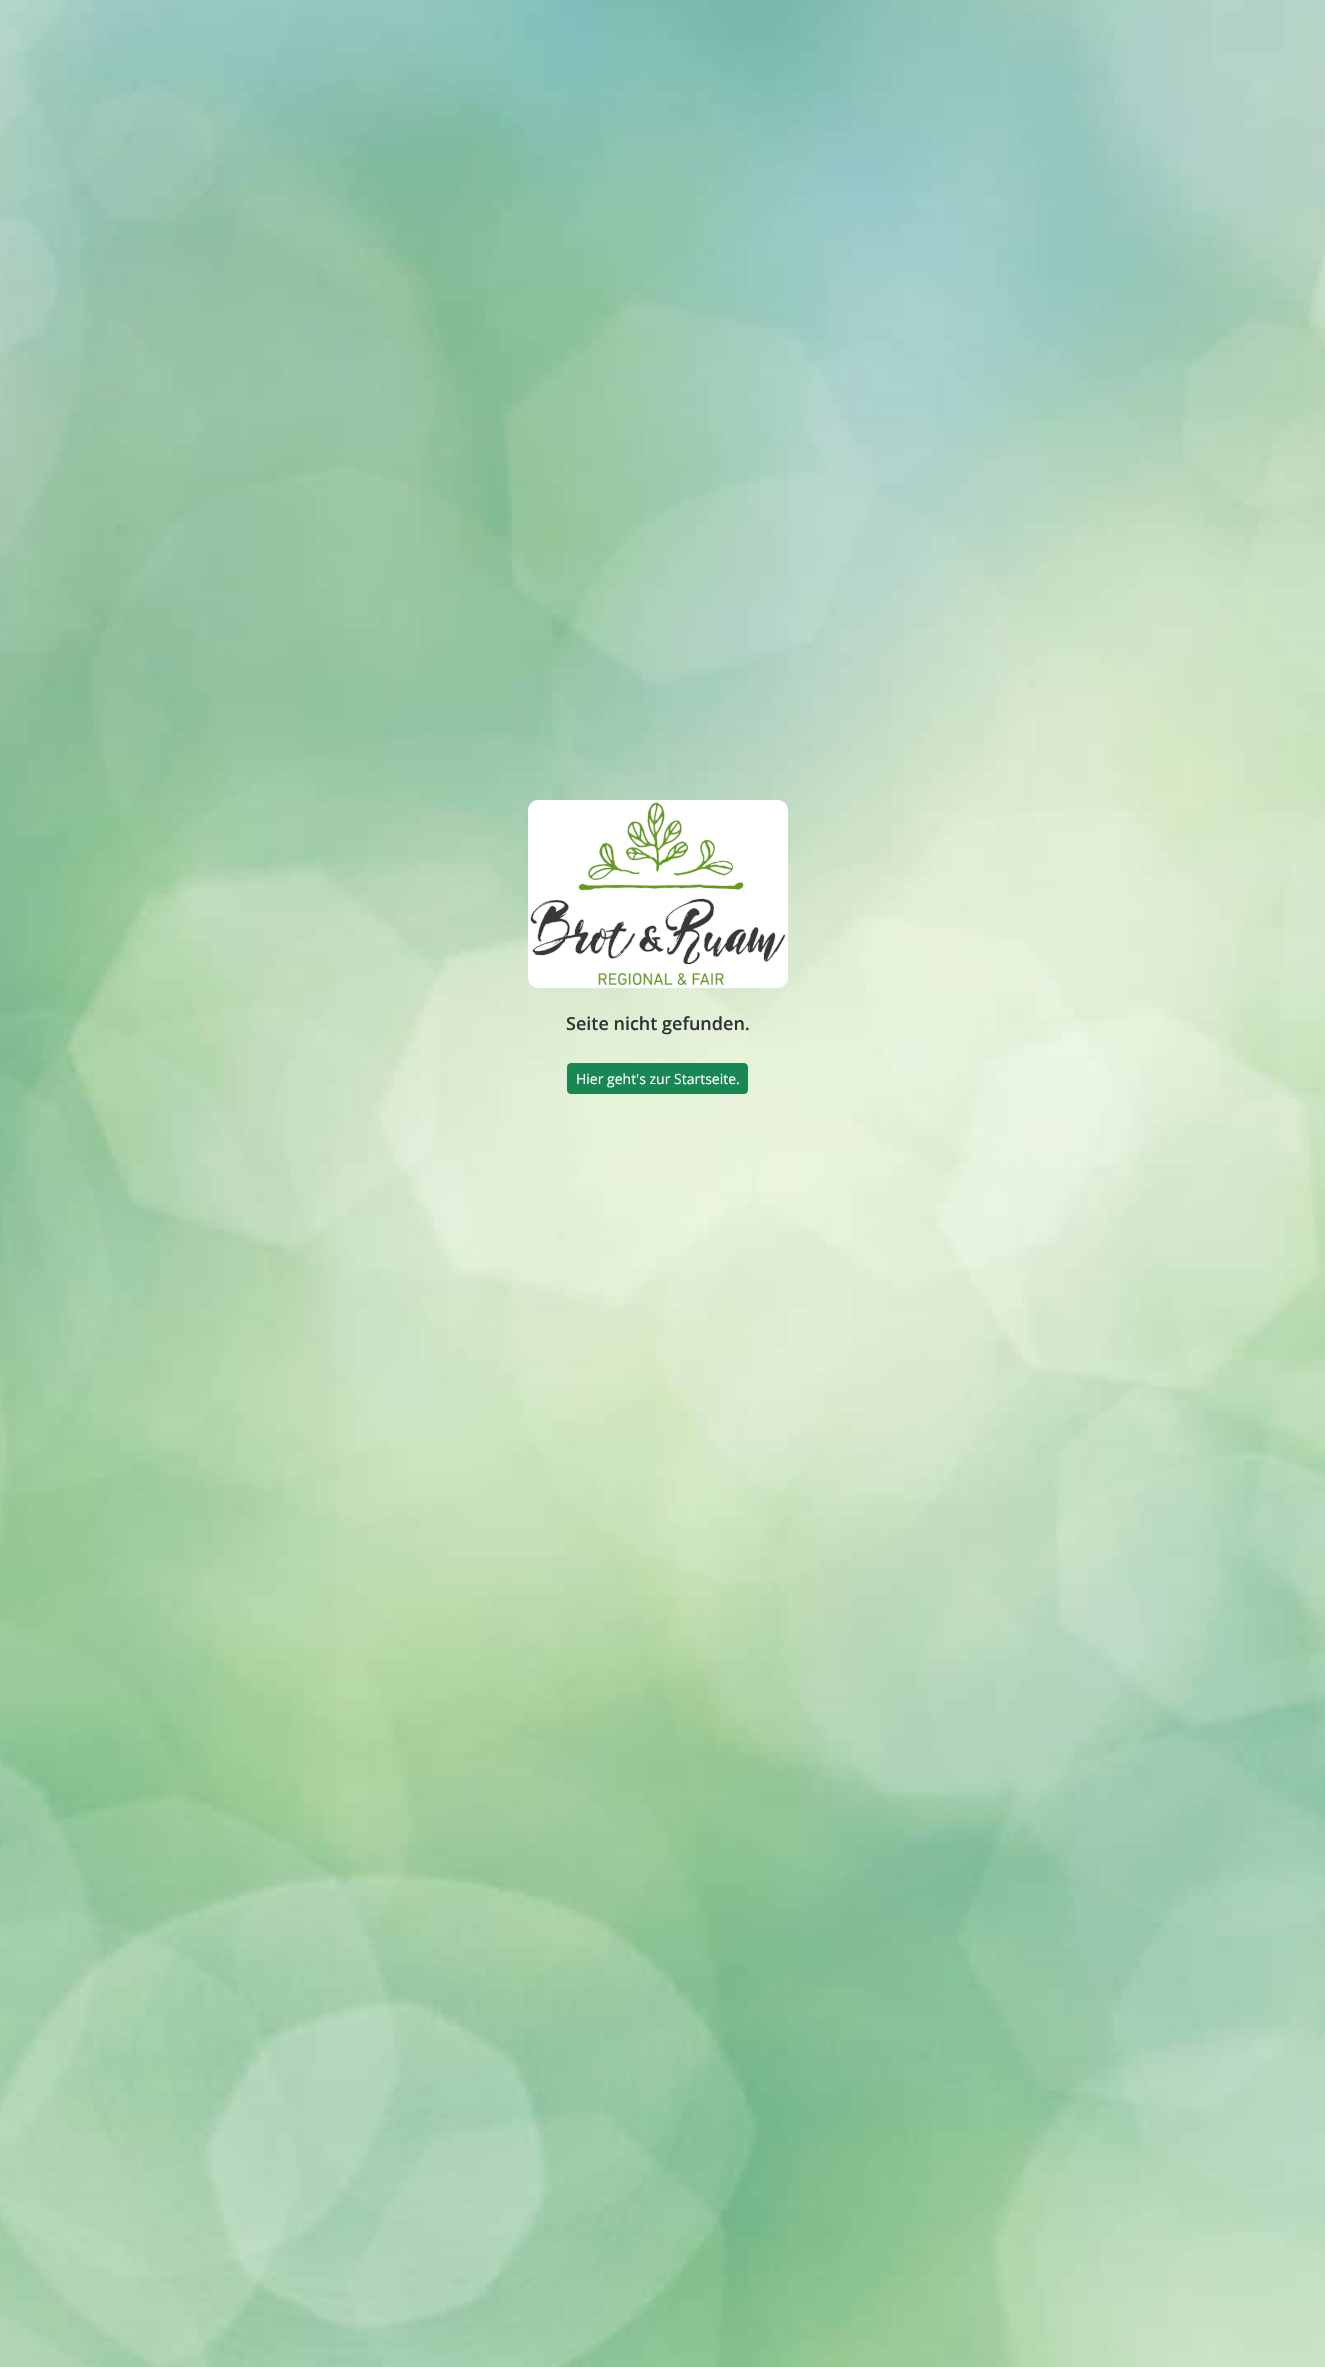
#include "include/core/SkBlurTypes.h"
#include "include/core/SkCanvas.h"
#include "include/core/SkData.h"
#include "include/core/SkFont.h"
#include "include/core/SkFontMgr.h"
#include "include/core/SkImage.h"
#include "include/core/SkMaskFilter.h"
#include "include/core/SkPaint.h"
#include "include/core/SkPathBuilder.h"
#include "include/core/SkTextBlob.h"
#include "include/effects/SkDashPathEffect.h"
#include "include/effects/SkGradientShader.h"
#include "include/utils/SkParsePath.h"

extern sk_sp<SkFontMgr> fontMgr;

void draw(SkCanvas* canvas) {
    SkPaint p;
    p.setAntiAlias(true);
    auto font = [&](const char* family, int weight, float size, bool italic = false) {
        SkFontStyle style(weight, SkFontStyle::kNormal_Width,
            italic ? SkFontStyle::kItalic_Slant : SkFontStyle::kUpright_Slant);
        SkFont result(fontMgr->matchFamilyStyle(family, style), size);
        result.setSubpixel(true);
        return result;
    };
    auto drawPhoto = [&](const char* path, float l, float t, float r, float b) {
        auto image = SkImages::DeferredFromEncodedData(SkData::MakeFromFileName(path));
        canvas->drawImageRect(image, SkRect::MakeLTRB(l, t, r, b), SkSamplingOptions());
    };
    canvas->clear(0xFFFFFFFF);
    drawPhoto("media/1.png", 0, 0, 1325, 2367);
    drawPhoto("media/2.png", 528, 800, 788, 988);
    auto font1 = font("Open Sans", 600, 18);
    p.setColor(0xFF333333);
    canvas->drawString("Seite nicht gefunden.", 566, 1030, font1, p);
    p.setColor(0xFF198754);
    canvas->drawRoundRect(SkRect::MakeLTRB(567.5f, 1063.5f, 747.5f, 1093.5f), 3.5f, 3.5f, p);
    p.setStyle(SkPaint::kStroke_Style);
    p.setStrokeWidth(1);
    canvas->drawRoundRect(SkRect::MakeLTRB(567.5f, 1063.5f, 747.5f, 1093.5f), 3.5f, 3.5f, p);
    auto font2 = font("Open Sans", 400, 14);
    p.setStyle(SkPaint::kFill_Style);
    p.setColor(0xFFFFFFFF);
    canvas->drawString("Hier geht's zur Startseite.", 576, 1084, font2, p);
}
